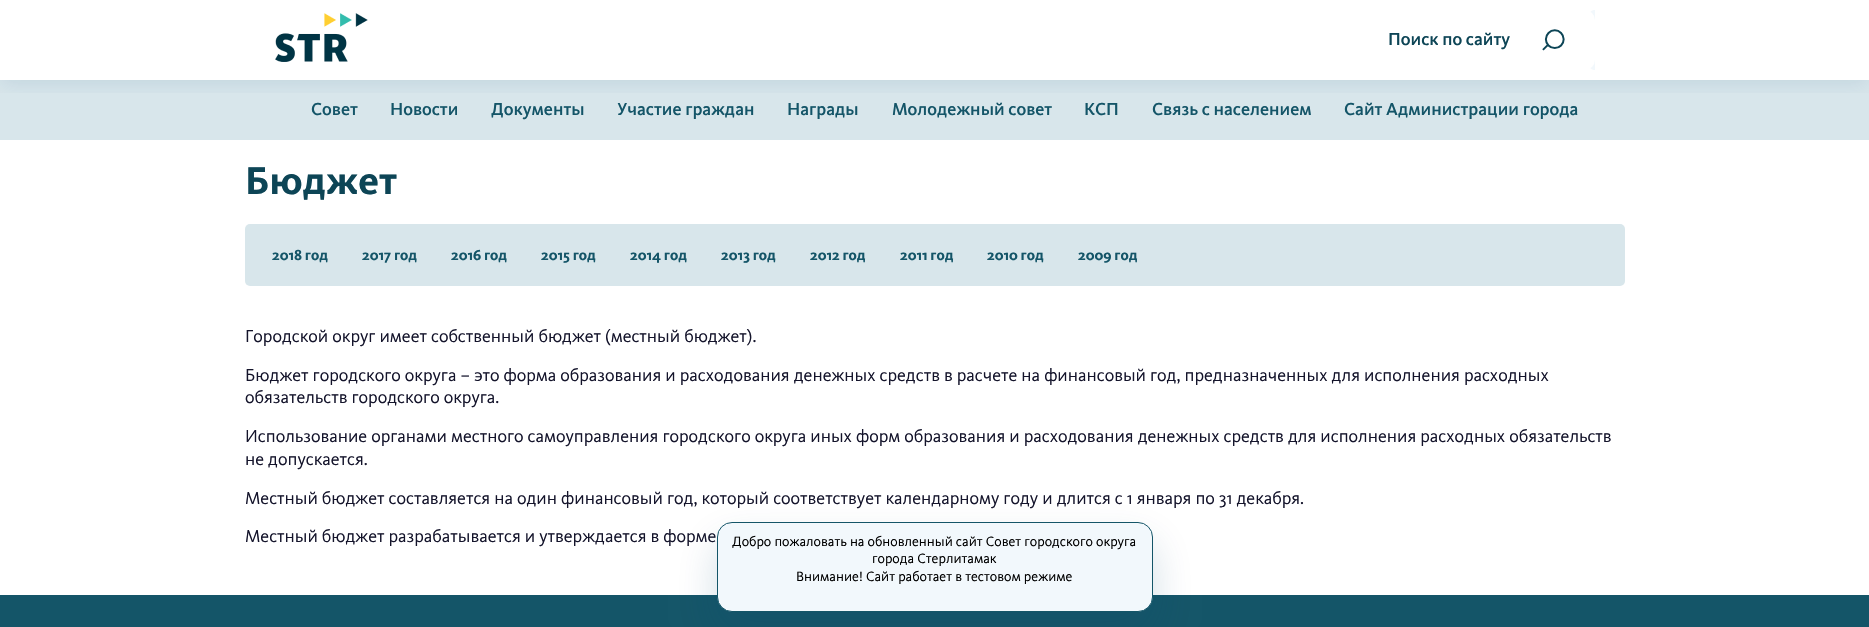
#include "include/core/SkBlurTypes.h"
#include "include/core/SkCanvas.h"
#include "include/core/SkData.h"
#include "include/core/SkFont.h"
#include "include/core/SkFontMgr.h"
#include "include/core/SkImage.h"
#include "include/core/SkMaskFilter.h"
#include "include/core/SkPaint.h"
#include "include/core/SkPathBuilder.h"
#include "include/core/SkTextBlob.h"
#include "include/effects/SkDashPathEffect.h"
#include "include/effects/SkGradientShader.h"
#include "include/utils/SkParsePath.h"

extern sk_sp<SkFontMgr> fontMgr;

void draw(SkCanvas* canvas) {
    SkPaint p;
    p.setAntiAlias(true);
    auto font = [&](const char* family, int weight, float size, bool italic = false) {
        SkFontStyle style(weight, SkFontStyle::kNormal_Width,
            italic ? SkFontStyle::kItalic_Slant : SkFontStyle::kUpright_Slant);
        SkFont result(fontMgr->matchFamilyStyle(family, style), size);
        result.setSubpixel(true);
        return result;
    };
    auto drawPhoto = [&](const char* path, float l, float t, float r, float b) {
        auto image = SkImages::DeferredFromEncodedData(SkData::MakeFromFileName(path));
        canvas->drawImageRect(image, SkRect::MakeLTRB(l, t, r, b), SkSamplingOptions());
    };
    canvas->clear(0xFFFFFFFF);
    p.setColor(0xFFD8E6EB);
    canvas->drawRect(SkRect::MakeLTRB(0, 80, 1869, 140), p);
    canvas->save();
    canvas->clipRect(SkRect::MakeLTRB(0, 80, 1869, 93));
    p.setColor(0x1A0B4671);
    p.setMaskFilter(SkMaskFilter::MakeBlur(kNormal_SkBlurStyle, 10));
    canvas->drawRect(SkRect::MakeLTRB(0, 5, 1869, 85), p);
    p.setMaskFilter(nullptr);
    canvas->restore();
    drawPhoto("media/1.png", 275, 13, 368, 62);
    p.setColor(0xFFF2F8FC);
    canvas->drawPath(SkPathBuilder().moveTo(1595, 10).lineTo(1595, 70).cubicTo(1591.5f, 70, 1589, 67.5f, 1589, 64).lineTo(1589, 16).cubicTo(1589, 12.5f, 1591.5f, 10, 1595, 10).close().detach(), p);
    p.setColor(0xFFFFFFFF);
    canvas->drawRoundRect(SkRect::MakeLTRB(1358, 10, 1595, 70), 10, 10, p);
    auto font1 = font("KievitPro", 500, 18);
    p.setColor(0xFF0D4556);
    canvas->drawString("Поиск по сайту", 1388, 45, font1, p);
    drawPhoto("media/2.png", 1542, 29, 1565, 51);
    p.setColor(0xFF145568);
    {
        const struct { const char* s; float x, y; } items[] = {
            {"Совет", 311, 115},
            {"Новости", 390, 115},
            {"Документы", 491, 115},
            {"Участие граждан", 617, 115},
            {"Награды", 787, 115},
            {"Молодежный совет", 892, 115},
            {"КСП", 1084, 115},
            {"Связь с населением", 1152, 115},
            {"Сайт Администрации города", 1344, 115},
        };
        for (auto [s, x, y] : items) {
            canvas->drawString(s, x, y, font1, p);
        }
    }
    auto font2 = font("KievitPro", 700, 40);
    p.setColor(0xFF0D4556);
    canvas->drawString("Бюджет", 245, 194, font2, p);
    p.setColor(0xFFD8E6EB);
    canvas->drawRoundRect(SkRect::MakeLTRB(245, 224, 1625, 286), 5, 5, p);
    auto font3 = font("KievitPro", 700, 15);
    p.setColor(0xFF145568);
    {
        const struct { const char* s; float x, y; } items[] = {
            {"2018 год", 272, 260},
            {"2017 год", 362, 260},
            {"2016 год", 451, 260},
            {"2015 год", 541, 260},
            {"2014 год", 630, 260},
            {"2013 год", 721, 260},
            {"2012 год", 810, 260},
            {"2011 год", 900, 260},
            {"2010 год", 987, 260},
            {"2009 год", 1078, 260},
        };
        for (auto [s, x, y] : items) {
            canvas->drawString(s, x, y, font3, p);
        }
    }
    auto font4 = font("KievitPro", 400, 18);
    p.setColor(0xFF14142B);
    {
        const struct { const char* s; float x, y; } items[] = {
            {"Городской округ имеет собственный бюджет (местный бюджет).", 245, 342},
            {"Бюджет городского округа – это форма образования и расходования денежных средств в расчете на финансовый год, предназначенных для исполнения расходных", 245, 381},
            {"обязательств городского округа.", 245, 403},
            {"Использование органами местного самоуправления городского округа иных форм образования и расходования денежных средств для исполнения расходных обязательств", 245, 442},
            {"не допускается.", 245, 465},
            {"Местный бюджет составляется на один финансовый год, который соответствует календарному году и длится с 1 января по 31 декабря.", 245, 504},
            {"Местный бюджет разрабатывается и утверждается в форме", 245, 542},
        };
        for (auto [s, x, y] : items) {
            canvas->drawString(s, x, y, font4, p);
        }
    }
    p.setColor(0xFF145568);
    canvas->drawRect(SkRect::MakeLTRB(0, 595, 1869, 627), p);
    p.setColor(0x2E0B4671);
    p.setMaskFilter(SkMaskFilter::MakeBlur(kNormal_SkBlurStyle, 20));
    canvas->drawRoundRect(SkRect::MakeLTRB(717, 542, 1153, 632), 15, 15, p);
    p.setMaskFilter(nullptr);
    p.setColor(0xFFF2F8FC);
    canvas->drawRoundRect(SkRect::MakeLTRB(717.5f, 522.5f, 1152.5f, 611.5f), 14.5f, 14.5f, p);
    p.setStyle(SkPaint::kStroke_Style);
    p.setStrokeWidth(1);
    p.setColor(0xFF145568);
    canvas->drawRoundRect(SkRect::MakeLTRB(717.5f, 522.5f, 1152.5f, 611.5f), 14.5f, 14.5f, p);
    auto font5 = font("KievitPro", 400, 14);
    p.setStyle(SkPaint::kFill_Style);
    p.setColor(0xFF000000);
    {
        const struct { const char* s; float x, y; } items[] = {
            {"Добро пожаловать на обновленный сайт Cовет городского округа", 732, 546},
            {"города Стерлитамак", 872, 563},
            {"Внимание! Сайт работает в тестовом режиме", 796, 581},
        };
        for (auto [s, x, y] : items) {
            canvas->drawString(s, x, y, font5, p);
        }
    }
}
